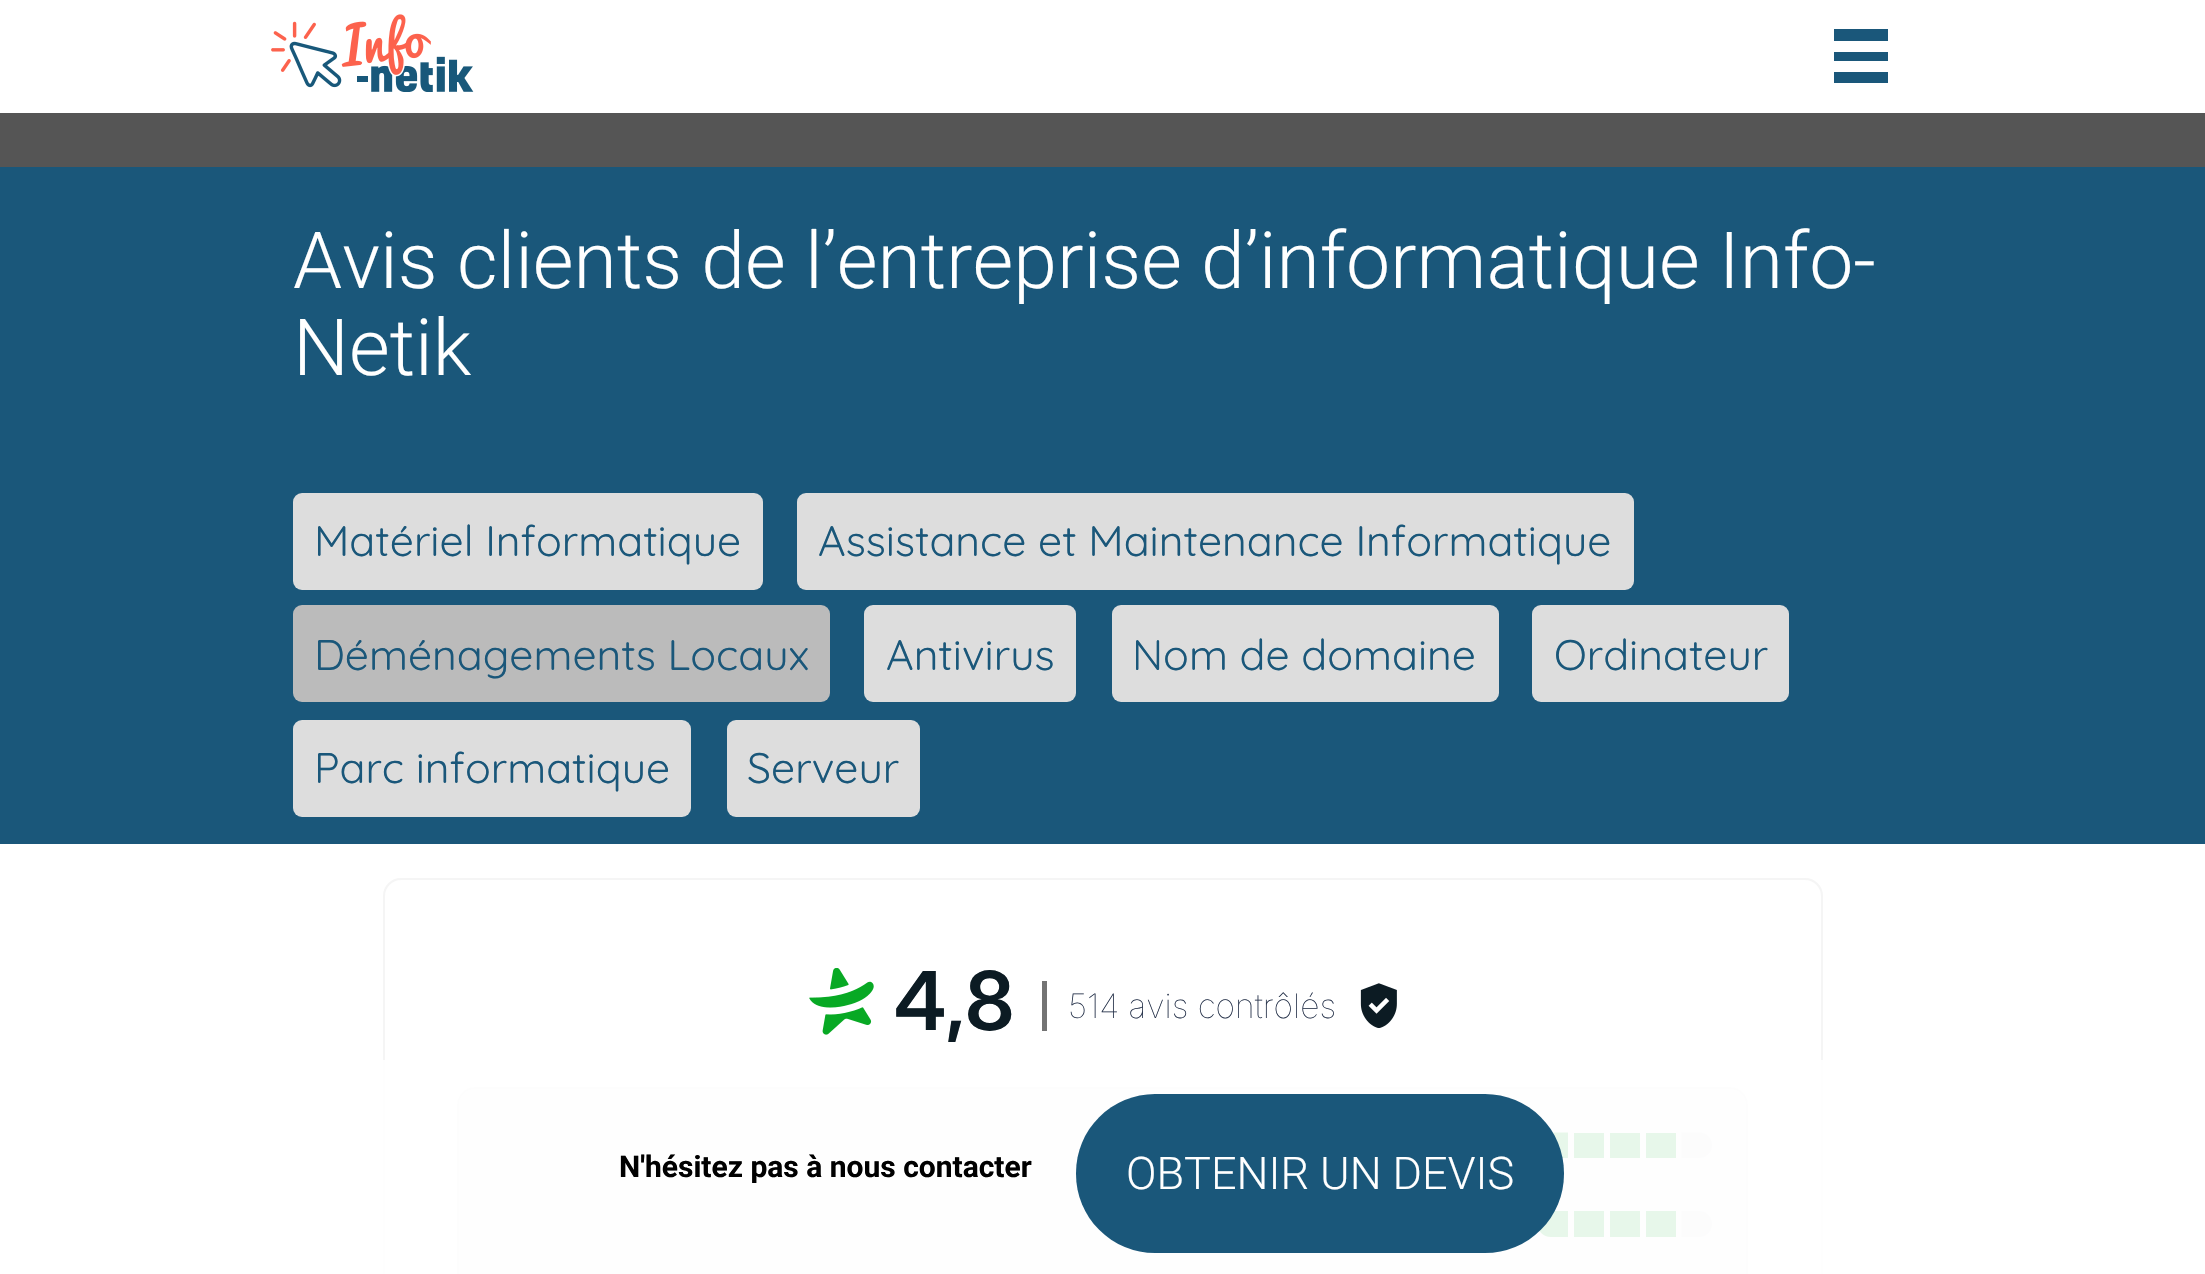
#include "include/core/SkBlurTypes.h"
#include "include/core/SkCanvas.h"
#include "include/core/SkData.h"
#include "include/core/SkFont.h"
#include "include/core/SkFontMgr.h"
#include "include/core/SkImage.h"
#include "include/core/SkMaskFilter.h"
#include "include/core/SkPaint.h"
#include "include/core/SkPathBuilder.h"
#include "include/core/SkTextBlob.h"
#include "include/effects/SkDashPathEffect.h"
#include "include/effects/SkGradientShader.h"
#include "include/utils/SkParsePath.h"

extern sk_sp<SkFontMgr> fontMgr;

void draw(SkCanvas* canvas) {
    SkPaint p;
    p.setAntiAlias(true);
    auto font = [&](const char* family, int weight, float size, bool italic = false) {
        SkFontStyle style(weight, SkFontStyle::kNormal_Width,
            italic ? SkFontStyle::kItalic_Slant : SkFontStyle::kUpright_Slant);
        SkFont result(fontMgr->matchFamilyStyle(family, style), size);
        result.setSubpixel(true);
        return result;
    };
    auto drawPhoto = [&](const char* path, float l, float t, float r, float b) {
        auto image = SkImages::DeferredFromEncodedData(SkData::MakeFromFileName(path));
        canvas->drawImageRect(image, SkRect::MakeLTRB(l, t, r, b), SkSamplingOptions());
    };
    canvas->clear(0xFFFFFFFF);
    drawPhoto("media/1.png", 271, 14, 474, 92);
    {
        const struct { float l, t, r, b; SkColor color; } items[] = {
            {1834, 52, 1888, 61, 0xFF1A577A},
            {1834, 29, 1888, 41, 0xFF1A577A},
            {1834, 72, 1888, 83, 0xFF1A577A},
            {0, 113, 2205, 167, 0xFF555555},
            {0, 167, 2205, 844, 0xFF1A577A},
        };
        for (auto [l, t, r, b, color] : items) {
            p.setColor(color);
            canvas->drawRect(SkRect::MakeLTRB(l, t, r, b), p);
        }
    }
    auto font1 = font("Roboto", 300, 78.75f);
    p.setColor(0xFFFFFFFF);
    canvas->drawString("Avis clients de l’entreprise d’informatique Info-", 293, 288, font1, p);
    canvas->drawString("Netik", 293, 375, font1, p);
    p.setColor(0xFFDDDDDD);
    canvas->drawRoundRect(SkRect::MakeLTRB(293, 493, 763, 590), 9, 9, p);
    auto font2 = font("Quicksand", 400, 42.75f);
    p.setColor(0xFF1A577A);
    canvas->drawString("Matériel Informatique", 314, 556, font2, p);
    p.setColor(0xFFDDDDDD);
    canvas->drawRoundRect(SkRect::MakeLTRB(797, 493, 1634, 590), 9, 9, p);
    p.setColor(0xFF1A577A);
    canvas->drawString("Assistance et Maintenance Informatique", 818, 556, font2, p);
    p.setColor(0xFFBBBBBB);
    canvas->drawRoundRect(SkRect::MakeLTRB(293, 605, 830, 702), 9, 9, p);
    p.setColor(0xFF1A577A);
    canvas->drawString("Déménagements Locaux", 314, 670, font2, p);
    p.setColor(0xFFDDDDDD);
    canvas->drawRoundRect(SkRect::MakeLTRB(864, 605, 1076, 702), 9, 9, p);
    p.setColor(0xFF1A577A);
    canvas->drawString("Antivirus", 886, 670, font2, p);
    p.setColor(0xFFDDDDDD);
    canvas->drawRoundRect(SkRect::MakeLTRB(1112, 605, 1499, 702), 9, 9, p);
    p.setColor(0xFF1A577A);
    canvas->drawString("Nom de domaine", 1132, 670, font2, p);
    p.setColor(0xFFDDDDDD);
    canvas->drawRoundRect(SkRect::MakeLTRB(1532, 605, 1789, 702), 9, 9, p);
    p.setColor(0xFF1A577A);
    canvas->drawString("Ordinateur", 1554, 670, font2, p);
    p.setColor(0xFFDDDDDD);
    canvas->drawRoundRect(SkRect::MakeLTRB(293, 720, 691, 817), 9, 9, p);
    p.setColor(0xFF1A577A);
    canvas->drawString("Parc informatique", 314, 783, font2, p);
    p.setColor(0xFFDDDDDD);
    canvas->drawRoundRect(SkRect::MakeLTRB(727, 720, 920, 817), 9, 9, p);
    p.setColor(0xFF1A577A);
    canvas->drawString("Serveur", 747, 783, font2, p);
    p.setStyle(SkPaint::kStroke_Style);
    p.setStrokeWidth(2);
    p.setColor(0xFFF5F5F5);
    canvas->drawRoundRect(SkRect::MakeLTRB(384, 879, 1822, 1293), 17, 17, p);
    drawPhoto("media/2.png", 809, 968, 874, 1035);
    auto font3 = font("Inter", 600, 81);
    p.setStyle(SkPaint::kFill_Style);
    p.setColor(0xFF0C1B23);
    canvas->drawString("4,8", 894, 1030, font3, p);
    p.setColor(0xFF737373);
    canvas->drawRect(SkRect::MakeLTRB(1042, 981, 1047, 1031), p);
    auto font4 = font("Inter", 100, 33.75f);
    p.setColor(0xFF27334B);
    canvas->drawString("514 avis contrôlés", 1068, 1018, font4, p);
    drawPhoto("media/3.png", 1360, 983, 1397, 1028);
    p.setColor(0xFFF5F5F5);
    canvas->drawRoundRect(SkRect::MakeLTRB(458, 1088, 1747, 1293), 17, 17, p);
    p.setStyle(SkPaint::kStroke_Style);
    p.setColor(0xFFF2F2F2);
    canvas->drawRoundRect(SkRect::MakeLTRB(458, 1088, 1747, 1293), 17, 17, p);
    p.setStyle(SkPaint::kFill_Style);
    p.setColor(0xFF5ECA70);
    canvas->drawPath(SkPathBuilder().moveTo(1537.5f, 1145).cubicTo(1537.5f, 1138, 1543.5f, 1132.5f, 1550.5f, 1132.5f).lineTo(1568, 1132.5f).lineTo(1568, 1158).lineTo(1550.5f, 1158).cubicTo(1543.5f, 1158, 1537.5f, 1152.5f, 1537.5f, 1145).close().detach(), p);
    {
        const struct { float l, t, r, b; SkColor color; } items[] = {
            {1574, 1133, 1604, 1158, 0xFF5ECA70},
            {1610, 1133, 1640, 1158, 0xFF5ECA70},
            {1646, 1133, 1676, 1158, 0xFF5ECA70},
        };
        for (auto [l, t, r, b, color] : items) {
            p.setColor(color);
            canvas->drawRect(SkRect::MakeLTRB(l, t, r, b), p);
        }
    }
    p.setColor(0xFFE8E9EB);
    canvas->drawPath(SkPathBuilder().moveTo(1712, 1145).cubicTo(1712, 1152.5f, 1706.5f, 1158, 1699, 1158).lineTo(1681.5f, 1158).lineTo(1681.5f, 1132.5f).lineTo(1699, 1132.5f).cubicTo(1706.5f, 1132.5f, 1712, 1138, 1712, 1145).close().detach(), p);
    p.setColor(0xFF5ECA70);
    canvas->drawPath(SkPathBuilder().moveTo(1537.5f, 1224).cubicTo(1537.5f, 1217, 1543.5f, 1211, 1550.5f, 1211).lineTo(1568, 1211).lineTo(1568, 1237).lineTo(1550.5f, 1237).cubicTo(1543.5f, 1237, 1537.5f, 1231, 1537.5f, 1224).close().detach(), p);
    {
        const struct { float l, t, r, b; SkColor color; } items[] = {
            {1574, 1211, 1604, 1237, 0xFF5ECA70},
            {1610, 1211, 1640, 1237, 0xFF5ECA70},
            {1646, 1211, 1676, 1237, 0xFF5ECA70},
        };
        for (auto [l, t, r, b, color] : items) {
            p.setColor(color);
            canvas->drawRect(SkRect::MakeLTRB(l, t, r, b), p);
        }
    }
    p.setColor(0xFFE8E9EB);
    canvas->drawPath(SkPathBuilder().moveTo(1712, 1224).cubicTo(1712, 1231, 1706.5f, 1237, 1699, 1237).lineTo(1681.5f, 1237).lineTo(1681.5f, 1211).lineTo(1699, 1211).cubicTo(1706.5f, 1211, 1712, 1217, 1712, 1224).close().detach(), p);
    p.setColor(0xD9FFFFFF);
    canvas->drawRect(SkRect::MakeLTRB(383, 1060, 1823, 1274), p);
    auto font5 = font("Roboto", 700, 30);
    p.setColor(0xFF000000);
    canvas->drawString("N'hésitez pas à nous contacter", 619, 1177, font5, p);
    p.setColor(0xFF1A577A);
    canvas->drawRoundRect(SkRect::MakeLTRB(1076, 1094, 1564, 1253), 79, 79, p);
    auto font6 = font("Roboto", 300, 45);
    p.setColor(0xFFFFFFFF);
    canvas->drawString("OBTENIR UN DEVIS", 1126, 1189, font6, p);
}
